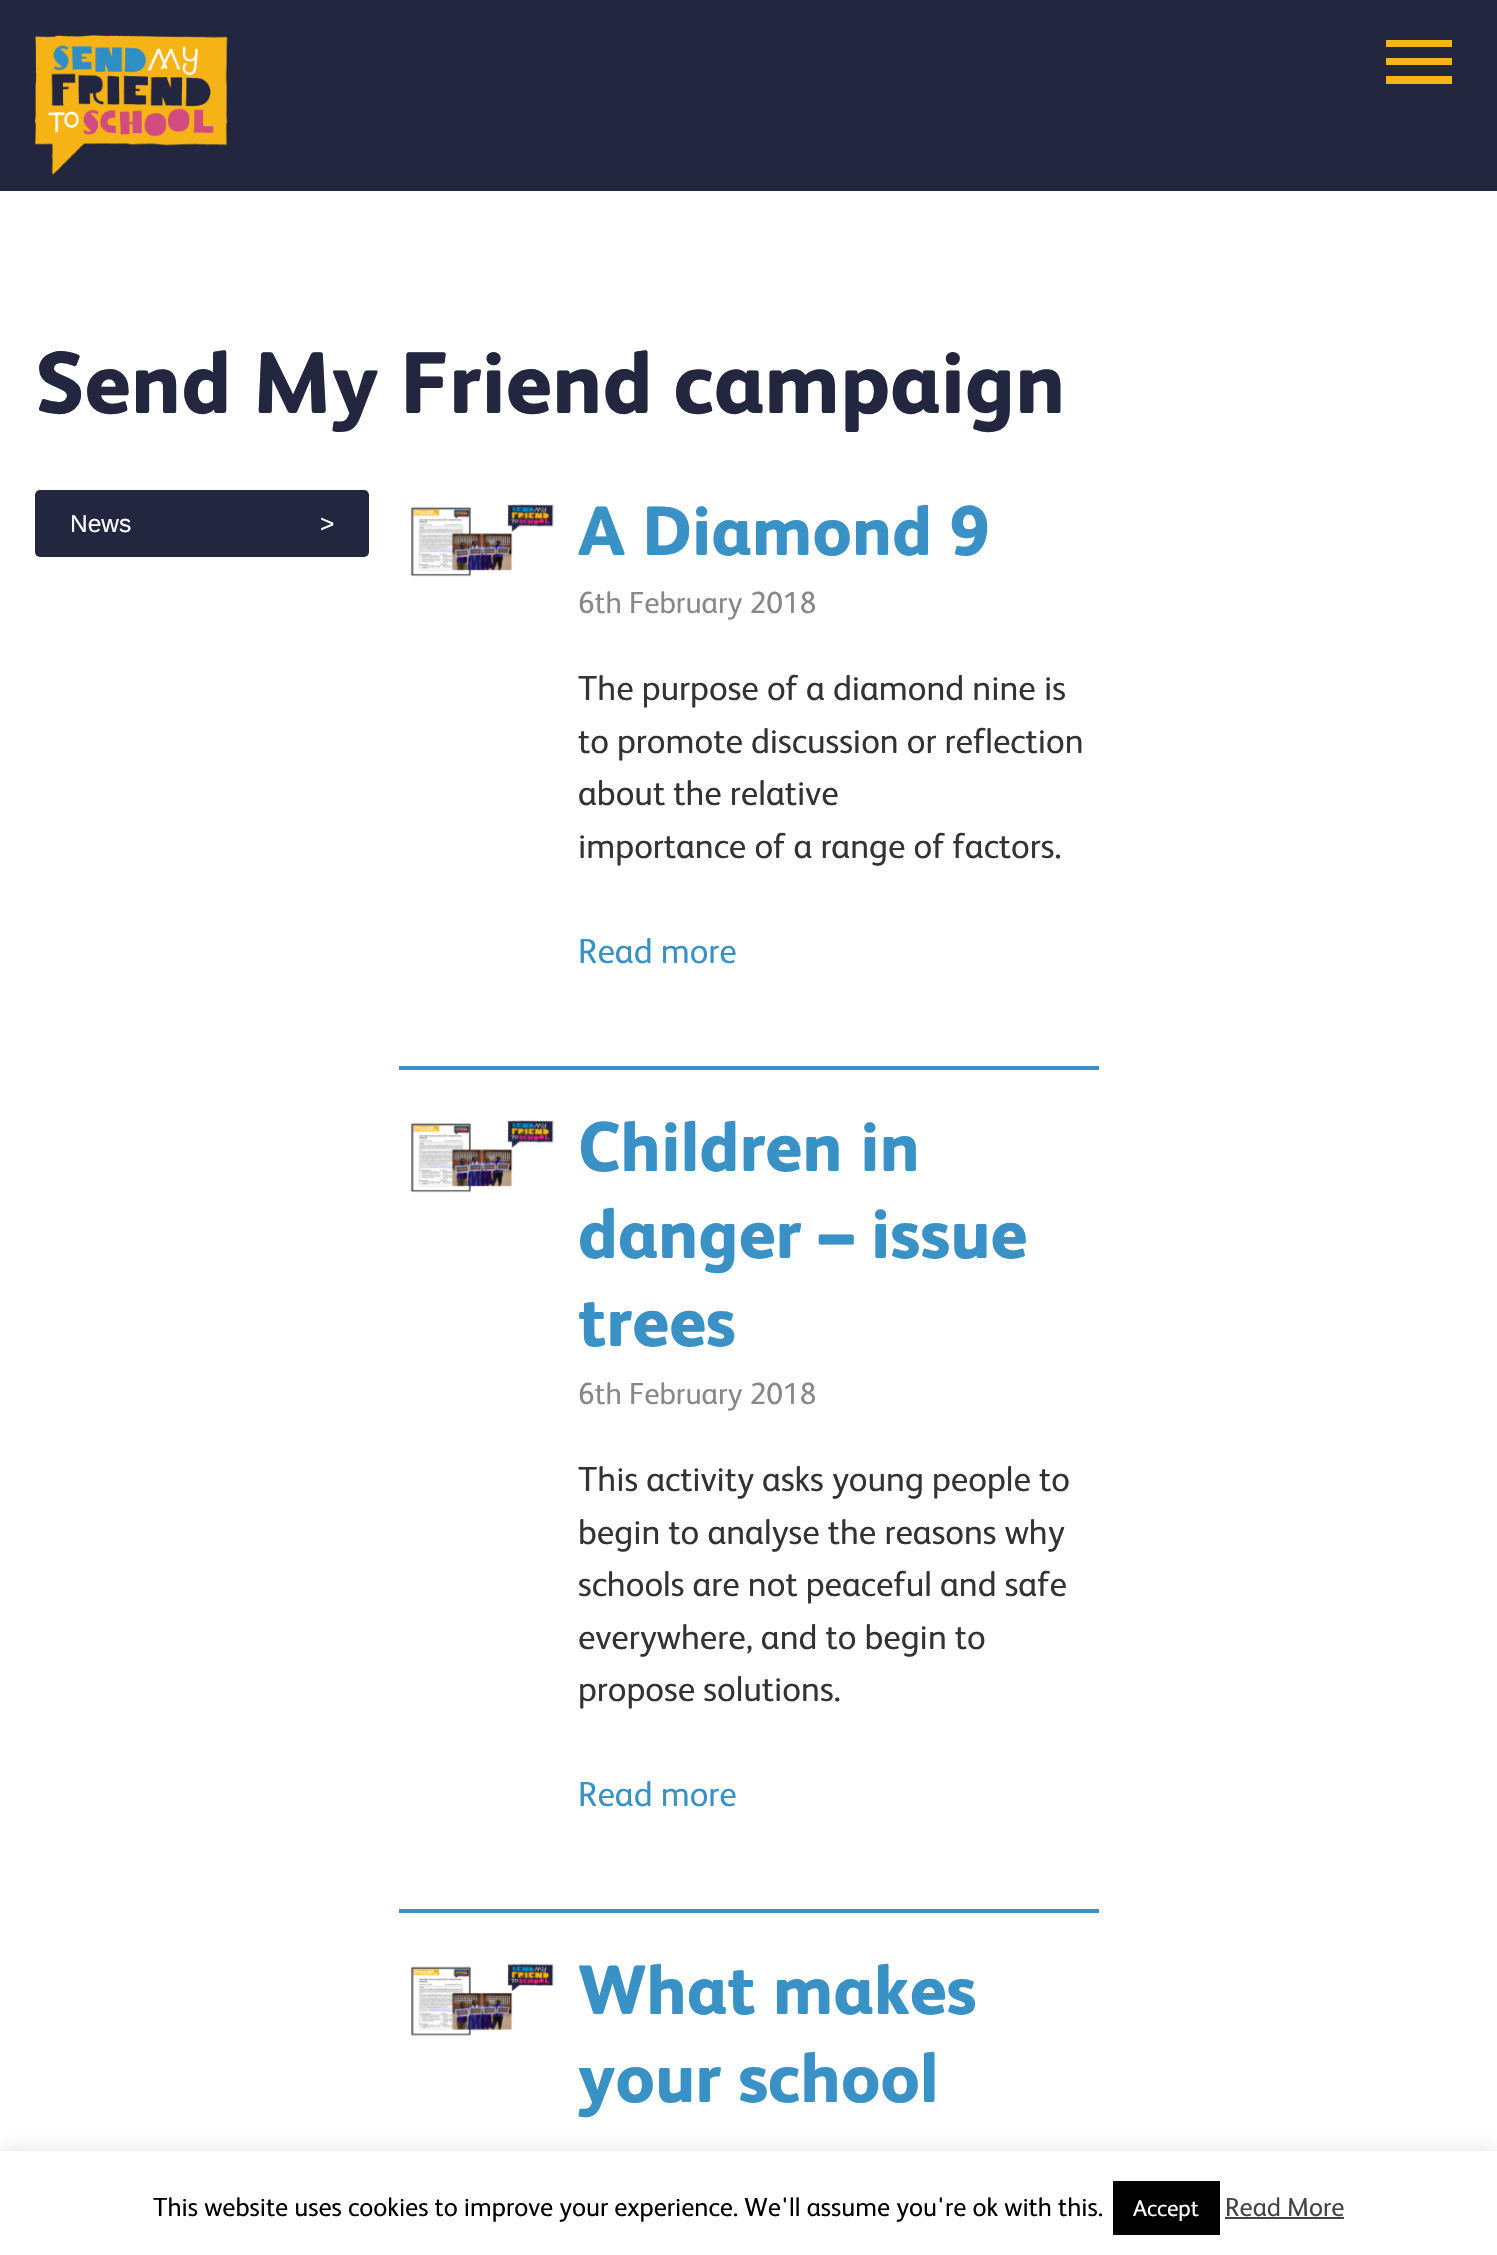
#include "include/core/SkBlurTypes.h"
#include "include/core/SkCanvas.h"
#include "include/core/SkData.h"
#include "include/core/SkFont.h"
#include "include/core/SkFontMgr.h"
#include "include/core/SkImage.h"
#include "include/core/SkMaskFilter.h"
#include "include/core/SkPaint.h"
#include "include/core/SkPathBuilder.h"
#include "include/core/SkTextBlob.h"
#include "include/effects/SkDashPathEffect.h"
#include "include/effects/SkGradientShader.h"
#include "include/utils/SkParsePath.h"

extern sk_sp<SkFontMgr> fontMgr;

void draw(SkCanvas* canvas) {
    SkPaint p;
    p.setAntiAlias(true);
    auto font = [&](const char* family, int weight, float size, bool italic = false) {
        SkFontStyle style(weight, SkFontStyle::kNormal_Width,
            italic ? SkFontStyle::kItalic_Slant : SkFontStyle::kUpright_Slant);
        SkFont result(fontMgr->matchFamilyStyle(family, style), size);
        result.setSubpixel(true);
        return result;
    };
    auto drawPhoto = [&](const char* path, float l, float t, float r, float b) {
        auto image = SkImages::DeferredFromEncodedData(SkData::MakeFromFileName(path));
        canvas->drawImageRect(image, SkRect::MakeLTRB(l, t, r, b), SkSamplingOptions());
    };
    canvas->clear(0xFFFFFFFF);
    p.setColor(0xFF22263E);
    canvas->drawRect(SkRect::MakeLTRB(0, 0, 1497, 191), p);
    drawPhoto("media/1.png", 35, 35, 228, 175);
    p.setColor(0xFFF6B415);
    canvas->drawPath(SkPathBuilder().moveTo(1386, 40).lineTo(1452, 40).lineTo(1452, 47).lineTo(1386, 47).close().moveTo(1386, 58).lineTo(1452, 58).lineTo(1452, 65).lineTo(1386, 65).close().moveTo(1386, 76).lineTo(1452, 76).lineTo(1452, 84).lineTo(1386, 84).close().detach(), p);
    auto font1 = font("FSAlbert", 800, 87.5f);
    p.setColor(0xFF22263E);
    canvas->drawString("Send My Friend campaign", 35, 413, font1, p);
    canvas->drawRoundRect(SkRect::MakeLTRB(35, 490, 369, 557), 5, 5, p);
    auto font2 = font("Liberation Sans", 400, 24.5f);
    p.setColor(0xFFFFFFFF);
    canvas->drawString("News", 70, 532, font2, p);
    canvas->drawString(">", 320, 532, font2, p);
    p.setColor(0xFF3991C6);
    canvas->drawRect(SkRect::MakeLTRB(399, 1066, 1099, 1070), p);
    drawPhoto("media/2.png", 410, 504, 554, 577);
    auto font3 = font("FSAlbert", 800, 70);
    canvas->drawString("A Diamond 9", 578, 555, font3, p);
    auto font4 = font("FSAlbert", 400, 30.5f);
    p.setColor(0xFF888888);
    canvas->drawString("6th February 2018", 578, 613, font4, p);
    auto font5 = font("FSAlbert", 400, 35);
    p.setColor(0xFF333333);
    {
        const struct { const char* s; float x, y; } items[] = {
            {"The purpose of a diamond nine is", 578, 700},
            {"to promote discussion or reflection", 578, 753},
            {"about the relative", 578, 805},
            {"importance of a range of factors.", 578, 858},
        };
        for (auto [s, x, y] : items) {
            canvas->drawString(s, x, y, font5, p);
        }
    }
    p.setColor(0xFF3991C6);
    canvas->drawString("Read more", 578, 963, font5, p);
    canvas->drawRect(SkRect::MakeLTRB(399, 1909, 1099, 1913), p);
    drawPhoto("media/2.png", 410, 1120, 554, 1193);
    {
        const struct { const char* s; float x, y; } items[] = {
            {"Children in", 578, 1171},
            {"danger – issue", 578, 1258},
            {"trees", 578, 1346},
        };
        for (auto [s, x, y] : items) {
            canvas->drawString(s, x, y, font3, p);
        }
    }
    p.setColor(0xFF888888);
    canvas->drawString("6th February 2018", 578, 1404, font4, p);
    p.setColor(0xFF333333);
    {
        const struct { const char* s; float x, y; } items[] = {
            {"This activity asks young people to", 578, 1491},
            {"begin to analyse the reasons why", 578, 1544},
            {"schools are not peaceful and safe", 578, 1596},
            {"everywhere, and to begin to", 578, 1649},
            {"propose solutions.", 578, 1701},
        };
        for (auto [s, x, y] : items) {
            canvas->drawString(s, x, y, font5, p);
        }
    }
    p.setColor(0xFF3991C6);
    canvas->drawString("Read more", 578, 1806, font5, p);
    drawPhoto("media/3.png", 410, 1963, 554, 2036);
    canvas->drawString("What makes", 578, 2014, font3, p);
    canvas->drawString("your school", 578, 2102, font3, p);
    p.setColor(0x4DACABAB);
    p.setMaskFilter(SkMaskFilter::MakeBlur(kNormal_SkBlurStyle, 9));
    canvas->drawRect(SkRect::MakeLTRB(0, 2149, 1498, 2254), p);
    p.setMaskFilter(nullptr);
    p.setColor(0xFFFFFFFF);
    canvas->drawRect(SkRect::MakeLTRB(0, 2151, 1497, 2255), p);
    auto font6 = font("FSAlbert", 400, 26.25f);
    p.setColor(0xFF000000);
    canvas->drawString("This website uses cookies to improve your experience. We'll assume you're ok with this.", 153, 2216, font6, p);
    canvas->drawRect(SkRect::MakeLTRB(1113, 2181, 1220, 2235), p);
    auto font7 = font("FSAlbert", 400, 23);
    p.setColor(0xFFFFFFFF);
    canvas->drawString("Accept", 1133, 2216, font7, p);
    p.setColor(0xFF444444);
    canvas->drawString("Read More", 1225, 2216, font6, p);
    canvas->drawRect(SkRect::MakeLTRB(1225, 2217, 1344, 2219), p);
}
